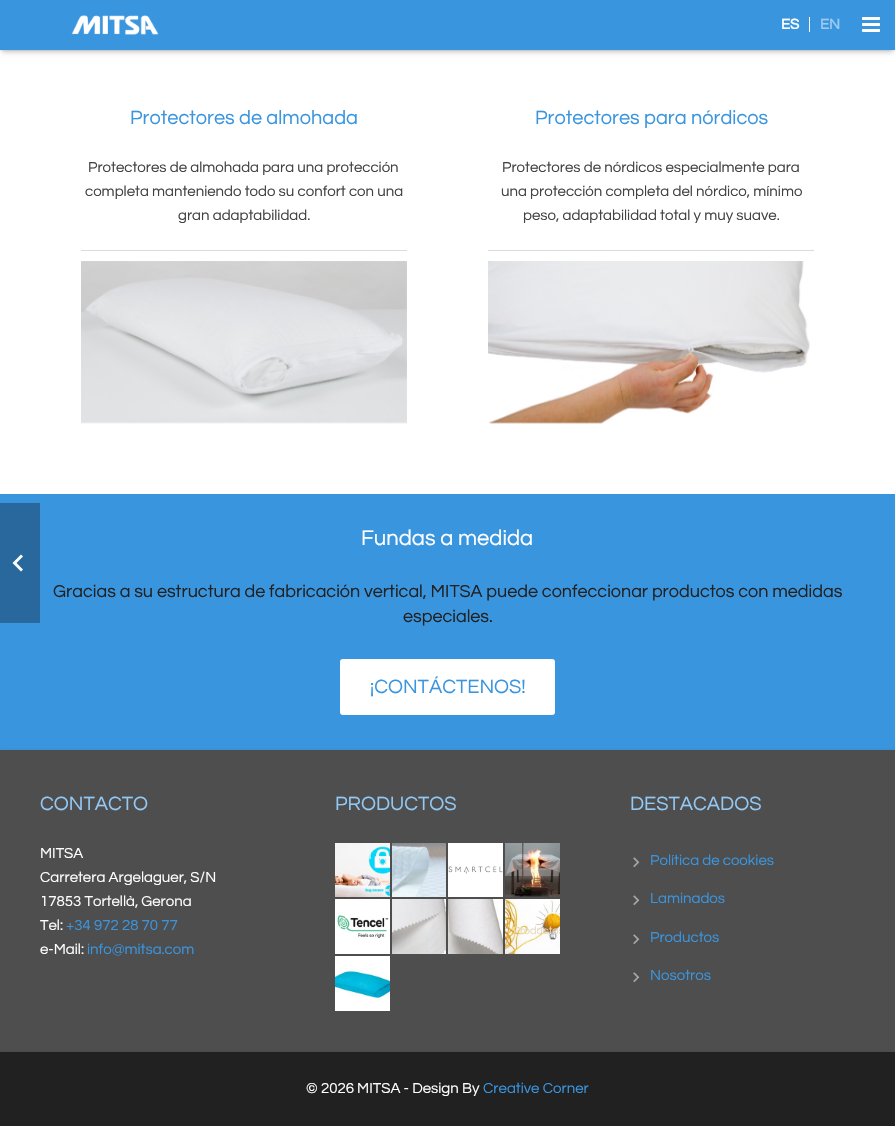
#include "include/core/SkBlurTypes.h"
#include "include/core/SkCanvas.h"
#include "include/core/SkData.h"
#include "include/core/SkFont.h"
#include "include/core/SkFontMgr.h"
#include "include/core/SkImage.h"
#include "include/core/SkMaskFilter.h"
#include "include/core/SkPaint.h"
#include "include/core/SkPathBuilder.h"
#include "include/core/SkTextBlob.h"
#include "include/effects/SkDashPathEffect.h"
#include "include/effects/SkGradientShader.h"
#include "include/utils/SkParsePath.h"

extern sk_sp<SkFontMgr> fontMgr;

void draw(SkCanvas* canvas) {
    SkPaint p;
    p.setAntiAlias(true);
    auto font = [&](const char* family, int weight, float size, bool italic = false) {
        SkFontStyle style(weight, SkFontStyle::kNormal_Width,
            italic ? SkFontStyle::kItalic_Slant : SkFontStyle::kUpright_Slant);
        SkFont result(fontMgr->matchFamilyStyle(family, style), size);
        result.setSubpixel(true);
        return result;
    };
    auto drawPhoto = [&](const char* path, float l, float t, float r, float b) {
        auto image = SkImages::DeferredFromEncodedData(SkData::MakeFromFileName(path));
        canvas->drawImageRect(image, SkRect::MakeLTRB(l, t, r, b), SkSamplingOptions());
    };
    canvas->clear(0xFFFFFFFF);
    p.setColor(0x0D000000);
    p.setMaskFilter(SkMaskFilter::MakeBlur(kNormal_SkBlurStyle, 0.5f));
    canvas->drawRect(SkRect::MakeLTRB(1, 3, 894, 51), p);
    p.setMaskFilter(nullptr);
    p.setColor(0x38000000);
    p.setMaskFilter(SkMaskFilter::MakeBlur(kNormal_SkBlurStyle, 2.5f));
    canvas->drawRect(SkRect::MakeLTRB(2, 6, 893, 52), p);
    p.setMaskFilter(nullptr);
    p.setColor(0xFF3A95DF);
    canvas->drawRect(SkRect::MakeLTRB(0, 0, 895, 50), p);
    drawPhoto("media/1.png", 71, 15, 159, 35);
    auto font1 = font("Questrial", 700, 15);
    p.setColor(0xFFFFFFFF);
    canvas->drawString("ES", 781, 29, font1, p);
    canvas->drawRect(SkRect::MakeLTRB(809, 17, 810, 32), p);
    p.setColor(0xFF9DCAEF);
    canvas->drawString("EN", 820, 29, font1, p);
    drawPhoto("media/2.png", 862, 17, 880, 32);
    p.setColor(0xFF3A95DF);
    canvas->drawRect(SkRect::MakeLTRB(0, 494, 895, 750), p);
    p.setColor(0xFF29689C);
    canvas->drawRect(SkRect::MakeLTRB(0, 503, 40, 623), p);
    p.setColor(0xFFFFFFFF);
    canvas->drawPath(SkPathBuilder().moveTo(23, 556.5f).lineTo(21, 554.5f).lineTo(12.5f, 563).lineTo(21, 571.5f).lineTo(23, 569.5f).lineTo(16.5f, 563).close().detach(), p);
    p.setColor(0xFFDADADA);
    canvas->drawRect(SkRect::MakeLTRB(81, 250, 407, 251), p);
    auto font2 = font("Questrial", 400, 20);
    p.setColor(0xFF3A95DF);
    canvas->drawString("Protectores de almohada", 130, 124, font2, p);
    auto font3 = font("Questrial", 400, 15);
    p.setColor(0xFF424242);
    {
        const struct { const char* s; float x, y; } items[] = {
            {"Protectores de almohada para una protección", 88, 172},
            {"completa manteniendo todo su confort con una", 85, 196},
            {"gran adaptabilidad.", 178, 220},
        };
        for (auto [s, x, y] : items) {
            canvas->drawString(s, x, y, font3, p);
        }
    }
    drawPhoto("media/3.png", 81, 261, 407, 424);
    p.setColor(0xFFDADADA);
    canvas->drawRect(SkRect::MakeLTRB(488, 250, 814, 251), p);
    p.setColor(0xFF3A95DF);
    canvas->drawString("Protectores para nórdicos", 535, 124, font2, p);
    p.setColor(0xFF424242);
    {
        const struct { const char* s; float x, y; } items[] = {
            {"Protectores de nórdicos especialmente para", 502, 172},
            {"una protección completa del nórdico, mínimo", 501, 196},
            {"peso, adaptabilidad total y muy suave.", 523, 220},
        };
        for (auto [s, x, y] : items) {
            canvas->drawString(s, x, y, font3, p);
        }
    }
    drawPhoto("media/4.png", 488, 261, 810, 424);
    auto font4 = font("Questrial", 400, 22);
    p.setColor(0xFFFFFFFF);
    canvas->drawString("Fundas a medida", 361, 545, font4, p);
    auto font5 = font("Questrial", 400, 18);
    p.setColor(0xFF212121);
    canvas->drawString("Gracias a su estructura de fabricación vertical, MITSA puede confeccionar productos con medidas", 53, 597, font5, p);
    canvas->drawString("especiales.", 403, 622, font5, p);
    p.setColor(0xFFFFFFFF);
    canvas->drawRoundRect(SkRect::MakeLTRB(340, 659, 555, 715), 3, 3, p);
    p.setColor(0xFF3A95DF);
    canvas->drawString("¡CONTÁCTENOS!", 370, 693, font2, p);
    p.setColor(0x26000000);
    p.setMaskFilter(SkMaskFilter::MakeBlur(kNormal_SkBlurStyle, 2.5f));
    canvas->drawRect(SkRect::MakeLTRB(0, 752, 895, 1054), p);
    p.setMaskFilter(nullptr);
    p.setColor(0xFF4E4E4E);
    canvas->drawRect(SkRect::MakeLTRB(0, 750, 895, 1052), p);
    p.setColor(0xFF93C9F5);
    canvas->drawString("CONTACTO", 40, 810, font2, p);
    p.setColor(0xFFFFFFFF);
    {
        const struct { const char* s; float x, y; } items[] = {
            {"MITSA", 40, 858},
            {"Carretera Argelaguer, S/N", 40, 882},
            {"17853 Tortellà, Gerona", 40, 906},
            {"Tel:", 40, 930},
        };
        for (auto [s, x, y] : items) {
            canvas->drawString(s, x, y, font3, p);
        }
    }
    p.setColor(0xFF3A95DF);
    canvas->drawString("+34 972 28 70 77", 66, 930, font3, p);
    p.setColor(0xFFFFFFFF);
    canvas->drawString("e-Mail:", 40, 954, font3, p);
    p.setColor(0xFF3A95DF);
    canvas->drawString("info@mitsa.com", 87, 954, font3, p);
    p.setColor(0xFF93C9F5);
    canvas->drawString("PRODUCTOS", 335, 810, font2, p);
    drawPhoto("media/5.png", 335, 843, 390, 897);
    auto font6 = font("Questrial", 400, 11);
    p.setColor(0xFFE7F4F6);
    canvas->drawString("i", 369, 859, font6, p);
    drawPhoto("media/6.png", 392, 843, 446, 897);
    p.setColor(0xFFFFFFFF);
    canvas->drawRect(SkRect::MakeLTRB(448, 843, 503, 897), p);
    drawPhoto("media/7.png", 448, 866, 503, 874);
    drawPhoto("media/8.png", 505, 843, 560, 897);
    p.setColor(0xFF2B201C);
    canvas->drawString("r", 550, 895, font6, p);
    p.setColor(0xFFFFFFFF);
    canvas->drawRect(SkRect::MakeLTRB(335, 899, 390, 954), p);
    drawPhoto("media/9.png", 337, 915, 389, 938);
    drawPhoto("media/10.png", 392, 899, 446, 954);
    drawPhoto("media/11.png", 448, 899, 503, 954);
    drawPhoto("media/12.png", 505, 899, 560, 954);
    canvas->save();
    canvas->clipRect(SkRect::MakeLTRB(505, 899, 560, 954));
    p.setColor(0xFFE7D9BF);
    canvas->drawString("Productos", 513, 934, font6, p);
    canvas->restore();
    p.setColor(0xFFFFFFFF);
    canvas->drawRect(SkRect::MakeLTRB(335, 956, 390, 1011), p);
    drawPhoto("media/13.png", 335, 968, 390, 1002);
    p.setColor(0xFF93C9F5);
    canvas->drawString("DESTACADOS", 630, 810, font2, p);
    drawPhoto("media/14.png", 633, 857, 640, 868);
    p.setColor(0xFF3A95DF);
    canvas->drawString("Política de cookies", 650, 865, font3, p);
    drawPhoto("media/14.png", 633, 895, 640, 906);
    canvas->drawString("Laminados", 650, 903, font3, p);
    drawPhoto("media/14.png", 633, 934, 640, 945);
    canvas->drawString("Productos", 650, 942, font3, p);
    drawPhoto("media/14.png", 633, 972, 640, 983);
    canvas->drawString("Nosotros", 650, 980, font3, p);
    p.setColor(0x26000000);
    p.setMaskFilter(SkMaskFilter::MakeBlur(kNormal_SkBlurStyle, 2.5f));
    canvas->drawRect(SkRect::MakeLTRB(0, 1054, 895, 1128), p);
    p.setMaskFilter(nullptr);
    p.setColor(0xFF212121);
    canvas->drawRect(SkRect::MakeLTRB(0, 1052, 895, 1126), p);
    p.setColor(0xFFFFFFFF);
    canvas->drawString("© 2026 MITSA - Design By", 306, 1093, font3, p);
    p.setColor(0xFF3A95DF);
    canvas->drawString("Creative Corner", 483, 1093, font3, p);
}
